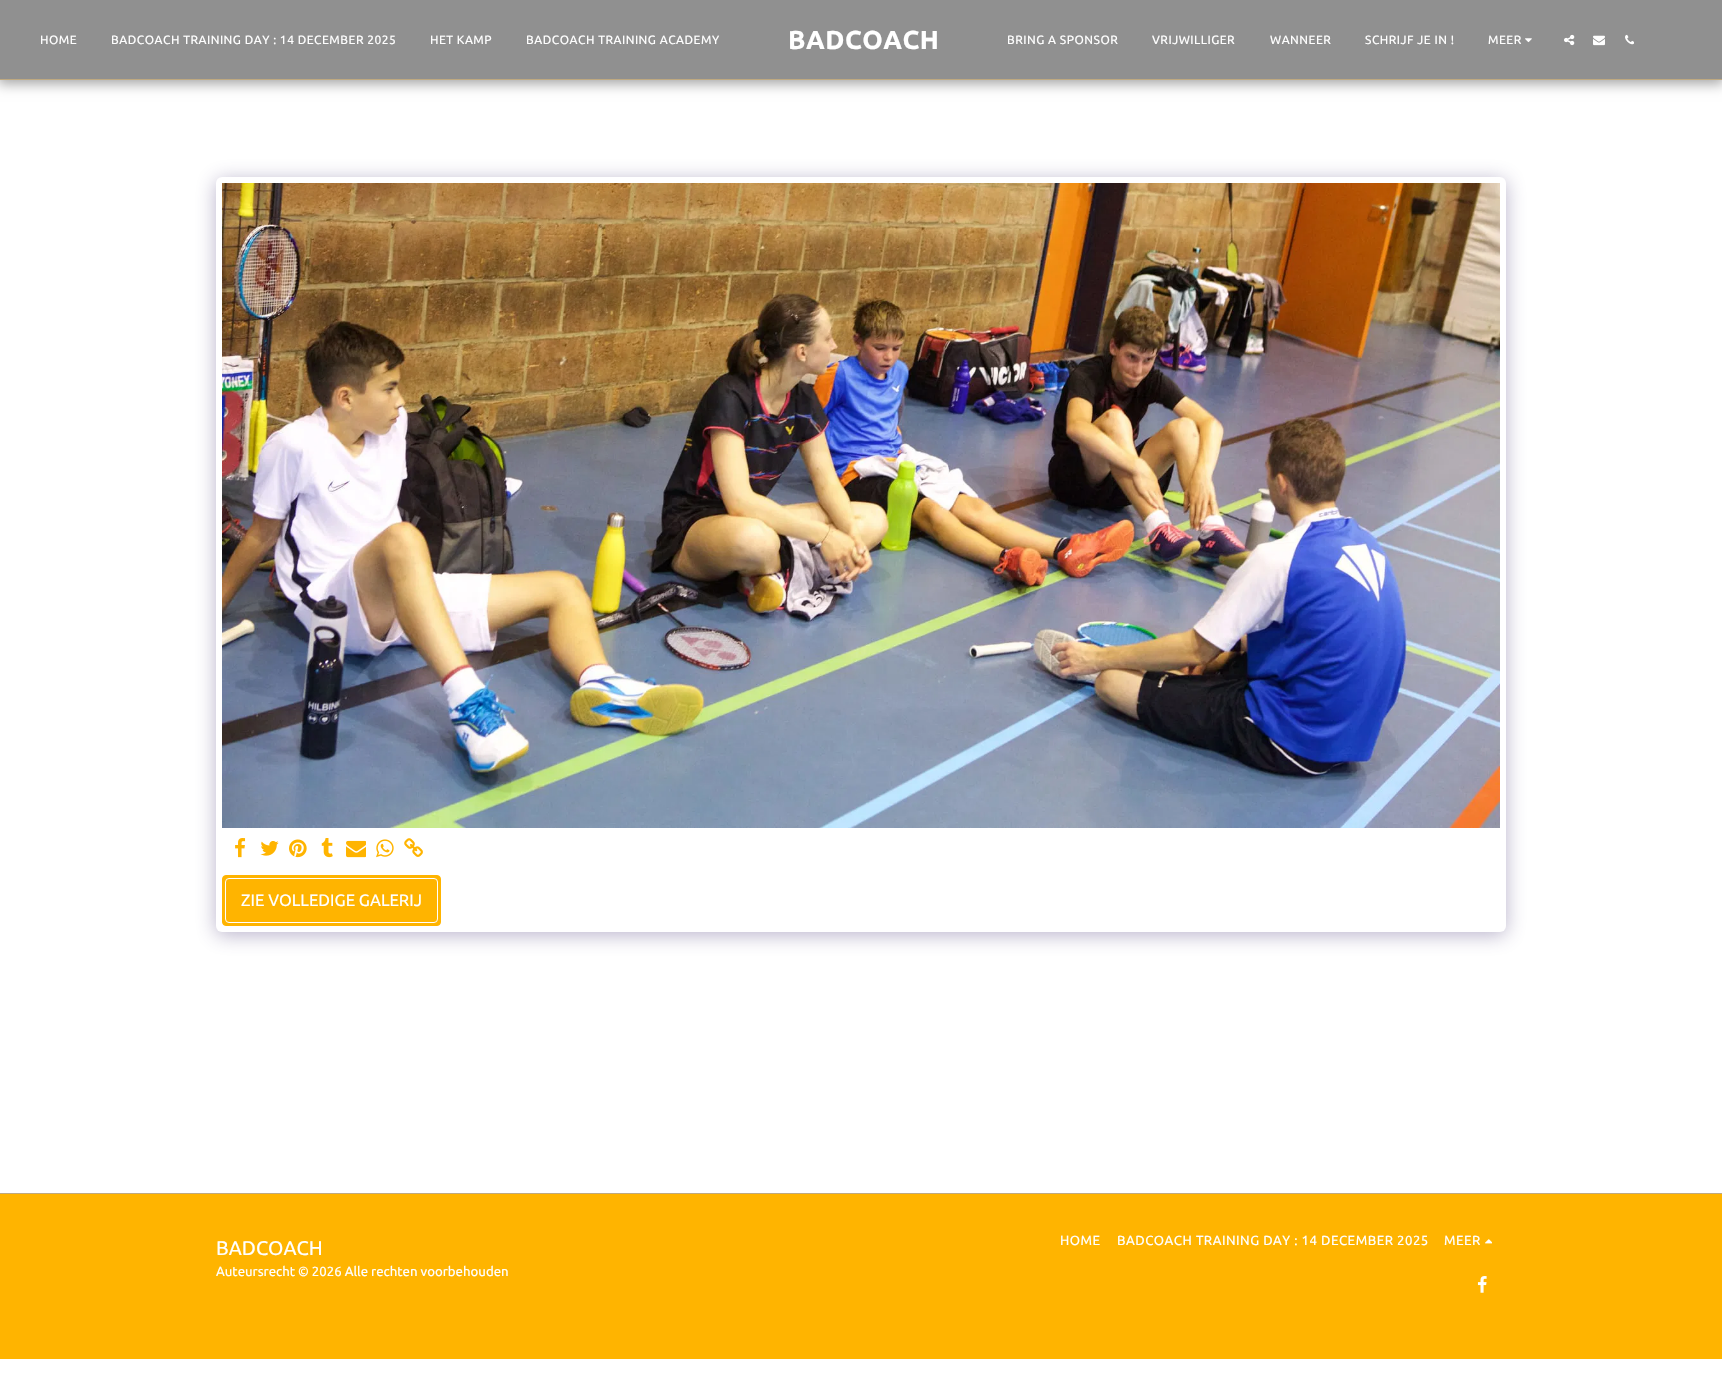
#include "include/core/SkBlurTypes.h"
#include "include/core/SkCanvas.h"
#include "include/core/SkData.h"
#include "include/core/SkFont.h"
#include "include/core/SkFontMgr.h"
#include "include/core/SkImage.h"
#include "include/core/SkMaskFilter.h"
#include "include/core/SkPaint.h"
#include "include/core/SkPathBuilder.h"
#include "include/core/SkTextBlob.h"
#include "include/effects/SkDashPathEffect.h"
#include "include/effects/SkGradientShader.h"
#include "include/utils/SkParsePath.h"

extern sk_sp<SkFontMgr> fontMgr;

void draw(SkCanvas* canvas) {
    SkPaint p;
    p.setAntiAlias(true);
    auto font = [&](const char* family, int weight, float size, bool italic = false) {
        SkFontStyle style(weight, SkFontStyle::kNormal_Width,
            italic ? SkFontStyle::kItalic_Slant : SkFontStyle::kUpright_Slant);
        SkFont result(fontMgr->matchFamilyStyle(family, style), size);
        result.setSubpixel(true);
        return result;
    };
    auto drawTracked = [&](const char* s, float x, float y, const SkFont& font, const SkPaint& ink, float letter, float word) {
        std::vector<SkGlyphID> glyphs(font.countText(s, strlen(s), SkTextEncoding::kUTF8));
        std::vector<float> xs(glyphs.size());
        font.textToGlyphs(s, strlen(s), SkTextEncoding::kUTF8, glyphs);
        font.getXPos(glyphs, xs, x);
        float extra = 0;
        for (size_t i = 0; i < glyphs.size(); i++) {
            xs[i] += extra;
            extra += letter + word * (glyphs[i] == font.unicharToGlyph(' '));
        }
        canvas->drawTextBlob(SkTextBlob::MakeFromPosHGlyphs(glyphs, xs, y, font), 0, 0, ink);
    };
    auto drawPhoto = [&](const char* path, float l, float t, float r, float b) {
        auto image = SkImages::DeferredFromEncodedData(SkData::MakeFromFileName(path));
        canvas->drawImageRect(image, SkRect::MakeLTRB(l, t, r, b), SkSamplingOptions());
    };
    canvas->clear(0xFFFFFFFF);
    p.setColor(0x59000000);
    p.setMaskFilter(SkMaskFilter::MakeBlur(kNormal_SkBlurStyle, 6));
    canvas->drawRect(SkRect::MakeLTRB(-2, 0, 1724, 84), p);
    p.setMaskFilter(nullptr);
    p.setColor(0xFF909090);
    canvas->drawRect(SkRect::MakeLTRB(0, 0, 1722, 79), p);
    p.setColor(0xFFBFA980);
    canvas->drawRect(SkRect::MakeLTRB(0, 79, 1722, 80), p);
    auto font1 = font("Ubuntu", 400, 12);
    p.setColor(0xFFFFFFFF);
    {
        const struct { const char* s; float x, y; } items[] = {
            {"HOME", 40, 44},
            {"BADCOACH TRAINING DAY : 14 DECEMBER 2025", 111, 44},
            {"HET KAMP", 430, 44},
            {"BADCOACH TRAINING ACADEMY", 526, 44},
        };
        for (auto [s, x, y] : items) {
            drawTracked(s, x, y, font1, p, 0.5f, 0);
        }
    }
    auto font2 = font("Ubuntu", 700, 26);
    drawTracked("BADCOACH", 788, 49, font2, p, 0.5f, 0);
    {
        const struct { const char* s; float x, y; } items[] = {
            {"BRING A SPONSOR", 1007, 44},
            {"VRIJWILLIGER", 1152, 44},
            {"WANNEER", 1270, 44},
            {"SCHRIJF JE IN !", 1365, 44},
            {"MEER", 1488, 44},
        };
        for (auto [s, x, y] : items) {
            drawTracked(s, x, y, font1, p, 0.5f, 0);
        }
    }
    drawPhoto("media/1.png", 1525, 38, 1532, 43);
    drawPhoto("media/2.png", 1564, 34, 1575, 46);
    drawPhoto("media/3.png", 1593, 35, 1605, 46);
    drawPhoto("media/4.png", 1625, 34, 1634, 45);
    p.setColor(0x664D3F7A);
    p.setMaskFilter(SkMaskFilter::MakeBlur(kNormal_SkBlurStyle, 10));
    canvas->drawRoundRect(SkRect::MakeLTRB(216, 180, 1506, 935), 6, 6, p);
    p.setMaskFilter(nullptr);
    p.setColor(0xFFFFFFFF);
    canvas->drawRoundRect(SkRect::MakeLTRB(216, 177, 1506, 932), 6, 6, p);
    drawPhoto("media/5.png", 222, 183, 1500, 828);
    drawPhoto("media/6.png", 235, 838, 246, 858);
    drawPhoto("media/7.png", 260, 841, 279, 856);
    drawPhoto("media/8.png", 289, 839, 307, 858);
    drawPhoto("media/9.png", 321, 838, 333, 858);
    drawPhoto("media/10.png", 346, 840, 366, 858);
    drawPhoto("media/11.png", 376, 839, 394, 858);
    drawPhoto("media/12.png", 404, 838, 423, 857);
    p.setColor(0xFFFFB400);
    canvas->drawRoundRect(SkRect::MakeLTRB(222.5f, 875.5f, 440.5f, 925.5f), 3.5f, 3.5f, p);
    p.setStyle(SkPaint::kStroke_Style);
    p.setStrokeWidth(1);
    canvas->drawRoundRect(SkRect::MakeLTRB(222.5f, 875.5f, 440.5f, 925.5f), 3.5f, 3.5f, p);
    p.setColor(0xFFFFFFFF);
    canvas->drawRoundRect(SkRect::MakeLTRB(225.5f, 878.5f, 437.5f, 922.5f), 3.5f, 3.5f, p);
    auto font3 = font("Ubuntu", 400, 16.5f);
    p.setStyle(SkPaint::kFill_Style);
    canvas->drawString("ZIE VOLLEDIGE GALERIJ", 241, 906, font3, p);
    p.setColor(0xFFFFB400);
    canvas->drawRect(SkRect::MakeLTRB(0, 1194, 1722, 1359), p);
    p.setColor(0xFFBFA980);
    canvas->drawRect(SkRect::MakeLTRB(0, 1193, 1722, 1194), p);
    auto font4 = font("Ubuntu", 400, 19.75f);
    p.setColor(0xFFFFFFFF);
    canvas->drawString("BADCOACH", 216, 1255, font4, p);
    auto font5 = font("Ubuntu", 400, 13.2f);
    canvas->drawString("Auteursrecht © 2026 Alle rechten voorbehouden", 216, 1276, font5, p);
    {
        const struct { const char* s; float x, y; } items[] = {
            {"HOME", 1060, 1245},
            {"BADCOACH TRAINING DAY : 14 DECEMBER 2025", 1117, 1245},
            {"MEER", 1444, 1245},
        };
        for (auto [s, x, y] : items) {
            drawTracked(s, x, y, font5, p, 0.5f, 0);
        }
    }
    drawPhoto("media/13.png", 1485, 1239, 1492, 1244);
    drawPhoto("media/14.png", 1477, 1276, 1487, 1293);
}
